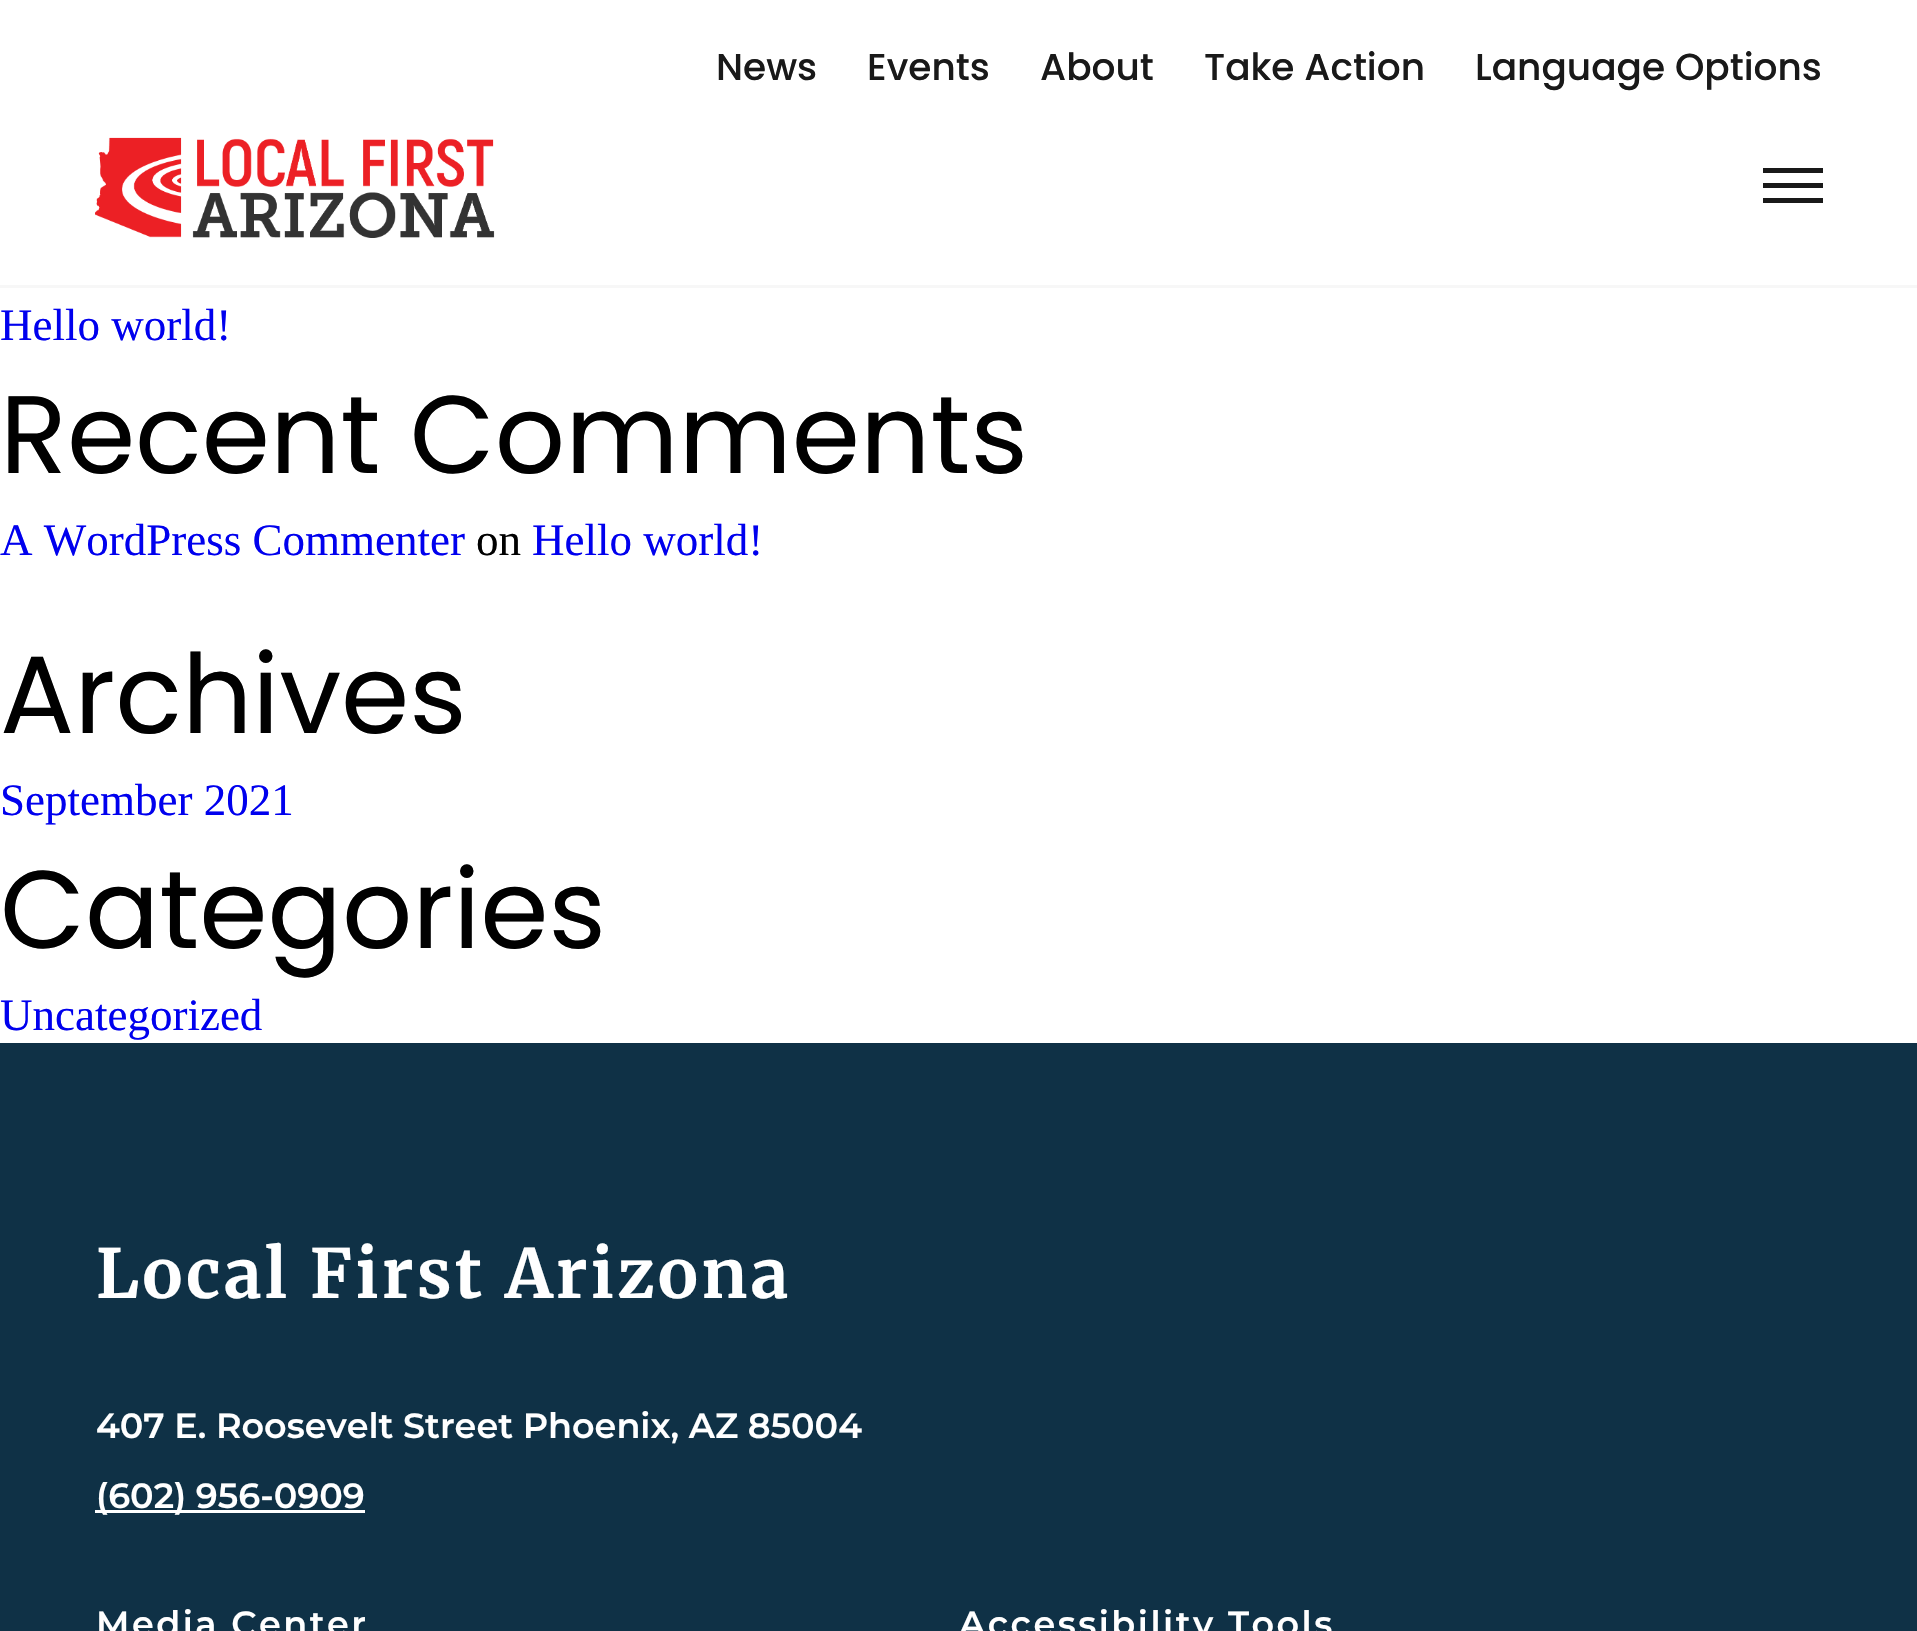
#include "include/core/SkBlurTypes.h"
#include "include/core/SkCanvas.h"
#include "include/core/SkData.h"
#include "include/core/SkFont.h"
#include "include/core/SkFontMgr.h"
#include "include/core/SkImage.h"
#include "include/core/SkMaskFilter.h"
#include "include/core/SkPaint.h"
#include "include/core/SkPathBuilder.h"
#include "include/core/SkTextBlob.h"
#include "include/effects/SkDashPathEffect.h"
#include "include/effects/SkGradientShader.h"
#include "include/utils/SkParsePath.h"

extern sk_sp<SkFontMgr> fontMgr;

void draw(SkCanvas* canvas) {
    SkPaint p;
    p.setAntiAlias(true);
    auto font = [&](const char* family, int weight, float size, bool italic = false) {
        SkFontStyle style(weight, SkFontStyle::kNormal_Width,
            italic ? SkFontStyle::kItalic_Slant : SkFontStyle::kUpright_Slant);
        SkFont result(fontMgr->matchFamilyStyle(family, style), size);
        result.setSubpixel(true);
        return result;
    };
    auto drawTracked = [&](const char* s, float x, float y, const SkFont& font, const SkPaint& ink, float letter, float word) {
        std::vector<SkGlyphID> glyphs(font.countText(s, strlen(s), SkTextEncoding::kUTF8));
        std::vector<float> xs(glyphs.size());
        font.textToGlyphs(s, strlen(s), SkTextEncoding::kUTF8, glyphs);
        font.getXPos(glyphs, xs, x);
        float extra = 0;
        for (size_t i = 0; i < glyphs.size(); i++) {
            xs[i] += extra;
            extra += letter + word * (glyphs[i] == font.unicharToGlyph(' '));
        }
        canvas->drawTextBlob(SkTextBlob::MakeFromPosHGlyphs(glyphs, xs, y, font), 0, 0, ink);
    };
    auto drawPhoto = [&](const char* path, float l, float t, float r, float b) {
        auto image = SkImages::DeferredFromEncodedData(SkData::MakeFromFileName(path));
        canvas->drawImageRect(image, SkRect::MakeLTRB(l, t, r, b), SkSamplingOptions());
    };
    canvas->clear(0xFFFFFFFF);
    p.setColor(0xFFF7F7F7);
    canvas->drawRect(SkRect::MakeLTRB(0, 285, 1917, 288), p);
    auto font1 = font("Poppins", 500, 37.5f);
    p.setColor(0xFF191919);
    {
        const struct { const char* s; float x, y; } items[] = {
            {"News", 716, 80},
            {"Events", 867, 80},
            {"About", 1040, 80},
            {"Take Action", 1204, 80},
            {"Language Options", 1475, 80},
        };
        for (auto [s, x, y] : items) {
            canvas->drawString(s, x, y, font1, p);
        }
    }
    drawPhoto("media/1.png", 95, 137, 495, 238);
    {
        const struct { float l, t, r, b; SkColor color; } items[] = {
            {1763, 168, 1823, 173, 0xFF191919},
            {1763, 183, 1823, 188, 0xFF191919},
            {1763, 198, 1823, 203, 0xFF191919},
        };
        for (auto [l, t, r, b, color] : items) {
            p.setColor(color);
            canvas->drawRect(SkRect::MakeLTRB(l, t, r, b), p);
        }
    }
    auto font2 = font("Liberation Serif", 400, 45);
    p.setColor(0xFF0000EE);
    canvas->drawString("Hello world!", 0, 340, font2, p);
    auto font3 = font("Poppins", 400, 110);
    p.setColor(0xFF000000);
    canvas->drawString("Recent Comments", 0, 473, font3, p);
    p.setColor(0xFF0000EE);
    canvas->drawString("A WordPress Commenter", 0, 555, font2, p);
    p.setColor(0xFF000000);
    canvas->drawString("on", 476, 555, font2, p);
    p.setColor(0xFF0000EE);
    canvas->drawString("Hello world!", 532, 555, font2, p);
    p.setColor(0xFF000000);
    canvas->drawString("Archives", 0, 733, font3, p);
    p.setColor(0xFF0000EE);
    canvas->drawString("September 2021", 0, 815, font2, p);
    p.setColor(0xFF000000);
    canvas->drawString("Categories", 0, 948, font3, p);
    p.setColor(0xFF0000EE);
    canvas->drawString("Uncategorized", 0, 1030, font2, p);
    p.setColor(0xFF0F3146);
    canvas->drawRect(SkRect::MakeLTRB(0, 1043, 1917, 1631), p);
    auto font4 = font("Merriweather", 700, 67.5f);
    p.setColor(0xFFFFFFFF);
    drawTracked("Local First Arizona", 96, 1298, font4, p, 3.4f, 0);
    auto font5 = font("Montserrat", 600, 35);
    canvas->drawString("407 E. Roosevelt Street Phoenix, AZ 85004", 96, 1438, font5, p);
    canvas->drawRect(SkRect::MakeLTRB(95, 1510, 365, 1513), p);
    canvas->drawString("(602) 956-0909", 96, 1508, font5, p);
    drawTracked("Media Center", 96, 1636, font5, p, 2.5f, 0);
    drawTracked("Accessibility Tools", 959, 1636, font5, p, 2.5f, 0);
}
